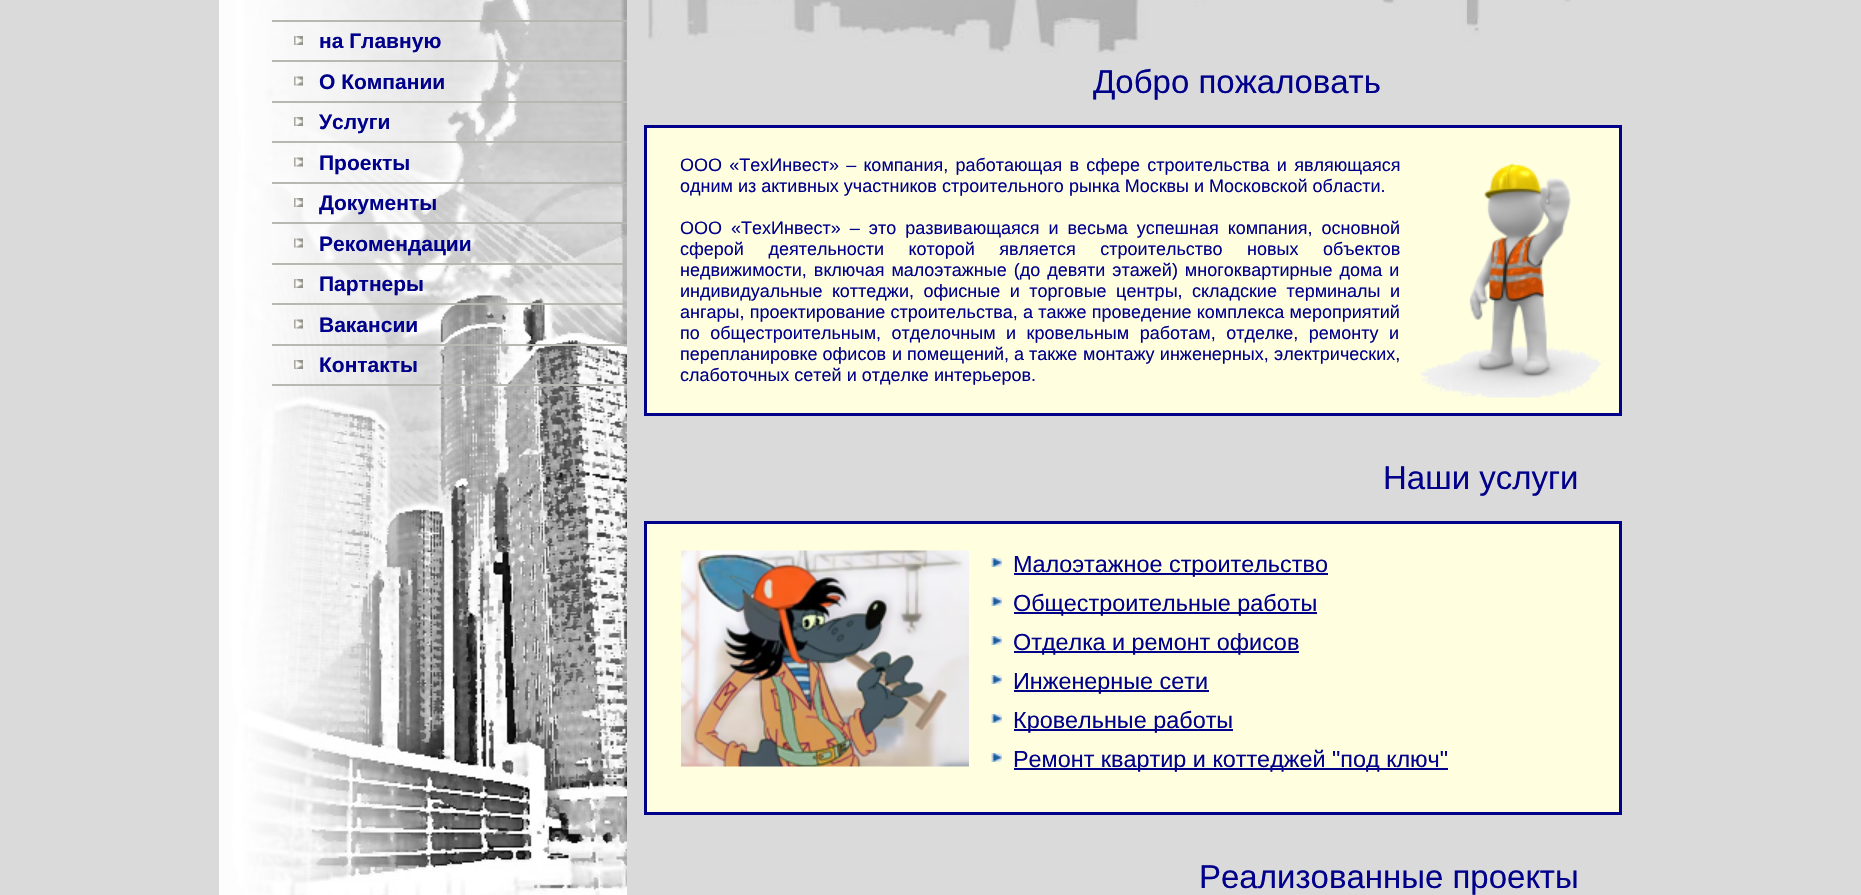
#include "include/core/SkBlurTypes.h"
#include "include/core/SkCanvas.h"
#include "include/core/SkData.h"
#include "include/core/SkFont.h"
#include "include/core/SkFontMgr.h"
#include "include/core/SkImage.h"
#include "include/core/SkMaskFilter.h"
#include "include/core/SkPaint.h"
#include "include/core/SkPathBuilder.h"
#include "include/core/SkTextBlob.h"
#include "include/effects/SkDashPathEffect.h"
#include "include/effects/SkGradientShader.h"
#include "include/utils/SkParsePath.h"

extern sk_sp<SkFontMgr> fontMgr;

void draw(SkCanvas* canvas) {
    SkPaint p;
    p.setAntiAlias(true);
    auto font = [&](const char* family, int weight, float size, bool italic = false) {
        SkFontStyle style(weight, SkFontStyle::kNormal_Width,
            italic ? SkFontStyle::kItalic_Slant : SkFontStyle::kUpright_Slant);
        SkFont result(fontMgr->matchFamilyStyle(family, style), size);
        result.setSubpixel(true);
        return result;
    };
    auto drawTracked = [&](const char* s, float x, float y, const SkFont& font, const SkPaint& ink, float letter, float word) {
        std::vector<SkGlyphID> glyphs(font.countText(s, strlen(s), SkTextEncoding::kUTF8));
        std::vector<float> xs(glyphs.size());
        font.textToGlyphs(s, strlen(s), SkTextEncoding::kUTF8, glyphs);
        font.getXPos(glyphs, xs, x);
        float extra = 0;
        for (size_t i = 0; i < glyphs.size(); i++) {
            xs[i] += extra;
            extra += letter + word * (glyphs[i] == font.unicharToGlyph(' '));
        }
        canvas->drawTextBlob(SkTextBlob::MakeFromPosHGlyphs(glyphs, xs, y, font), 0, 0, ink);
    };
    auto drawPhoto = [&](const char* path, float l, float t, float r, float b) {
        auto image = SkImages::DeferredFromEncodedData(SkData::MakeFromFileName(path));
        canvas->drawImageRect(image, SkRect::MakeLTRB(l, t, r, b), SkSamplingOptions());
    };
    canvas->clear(0xFFDADADA);
    drawPhoto("media/1.png", 219, 0, 627, 895);
    p.setColor(0xFFB8B8B2);
    canvas->drawRect(SkRect::MakeLTRB(272, 20, 627, 22), p);
    drawPhoto("media/2.png", 294, 36, 303, 45);
    canvas->drawRect(SkRect::MakeLTRB(272, 60, 627, 62), p);
    auto font1 = font("Liberation Sans", 700, 21);
    p.setColor(0xFF00008B);
    canvas->drawString("на Главную", 319, 48, font1, p);
    drawPhoto("media/3.png", 294, 76, 303, 86);
    p.setColor(0xFFB8B8B2);
    canvas->drawRect(SkRect::MakeLTRB(272, 101, 627, 103), p);
    p.setColor(0xFF00008B);
    canvas->drawString("О Компании", 319, 89, font1, p);
    drawPhoto("media/2.png", 294, 117, 303, 126);
    p.setColor(0xFFB8B8B2);
    canvas->drawRect(SkRect::MakeLTRB(272, 141, 627, 143), p);
    p.setColor(0xFF00008B);
    canvas->drawString("Услуги", 319, 129, font1, p);
    drawPhoto("media/4.png", 294, 157, 303, 167);
    p.setColor(0xFFB8B8B2);
    canvas->drawRect(SkRect::MakeLTRB(272, 182, 627, 184), p);
    p.setColor(0xFF00008B);
    canvas->drawString("Проекты", 319, 170, font1, p);
    drawPhoto("media/2.png", 294, 198, 303, 207);
    p.setColor(0xFFB8B8B2);
    canvas->drawRect(SkRect::MakeLTRB(272, 222, 627, 224), p);
    p.setColor(0xFF00008B);
    canvas->drawString("Документы", 319, 210, font1, p);
    drawPhoto("media/5.png", 294, 238, 303, 248);
    p.setColor(0xFFB8B8B2);
    canvas->drawRect(SkRect::MakeLTRB(272, 263, 627, 265), p);
    p.setColor(0xFF00008B);
    canvas->drawString("Рекомендации", 319, 251, font1, p);
    drawPhoto("media/2.png", 294, 279, 303, 288);
    p.setColor(0xFFB8B8B2);
    canvas->drawRect(SkRect::MakeLTRB(272, 303, 627, 305), p);
    p.setColor(0xFF00008B);
    canvas->drawString("Партнеры", 319, 291, font1, p);
    drawPhoto("media/6.png", 294, 319, 303, 329);
    p.setColor(0xFFB8B8B2);
    canvas->drawRect(SkRect::MakeLTRB(272, 344, 627, 346), p);
    p.setColor(0xFF00008B);
    canvas->drawString("Вакансии", 319, 332, font1, p);
    drawPhoto("media/2.png", 294, 360, 303, 369);
    p.setColor(0xFFB8B8B2);
    canvas->drawRect(SkRect::MakeLTRB(272, 384, 627, 386), p);
    p.setColor(0xFF00008B);
    canvas->drawString("Контакты", 319, 372, font1, p);
    drawPhoto("media/7.png", 648, 0, 1571, 54);
    auto font2 = font("Liberation Sans", 400, 33);
    canvas->drawString("Добро пожаловать", 1093, 93, font2, p);
    p.setColor(0xFFFFFFE0);
    canvas->drawRect(SkRect::MakeLTRB(645.5f, 126.5f, 1620.5f, 414.5f), p);
    p.setStyle(SkPaint::kStroke_Style);
    p.setStrokeWidth(3);
    p.setColor(0xFF00008B);
    canvas->drawRect(SkRect::MakeLTRB(645.5f, 126.5f, 1620.5f, 414.5f), p);
    auto font3 = font("Liberation Sans", 400, 18);
    p.setStyle(SkPaint::kFill_Style);
    drawTracked("ООО «ТехИнвест» – компания, работающая в сфере строительства и являющаяся", 680, 171, font3, p, 0, 2.25f);
    canvas->drawString("одним из активных участников строительного рынка Москвы и Московской области.", 680, 192, font3, p);
    drawTracked("ООО «ТехИнвест» – это развивающаяся и весьма успешная компания, основной", 680, 234, font3, p, 0, 4);
    drawTracked("сферой деятельности которой является строительство новых объектов", 680, 255, font3, p, 0, 19.5f);
    drawTracked("недвижимости, включая малоэтажные (до девяти этажей) многоквартирные дома и", 680, 276, font3, p, 0, 2);
    drawTracked("индивидуальные коттеджи, офисные и торговые центры, складские терминалы и", 680, 297, font3, p, 0, 4.5f);
    drawTracked("ангары, проектирование строительства, а также проведение комплекса мероприятий", 680, 318, font3, p, 0, 0.25f);
    drawTracked("по общестроительным, отделочным и кровельным работам, отделке, ремонту и", 680, 339, font3, p, 0, 5.5f);
    canvas->drawString("перепланировке офисов", 680, 360, font3, p);
    canvas->drawString("и помещений, а также", 892, 360, font3, p);
    drawTracked("монтажу инженерных, электрических,", 1083, 360, font3, p, 0, 0.25f);
    canvas->drawString("слаботочных сетей и отделке интерьеров.", 680, 381, font3, p);
    drawPhoto("media/8.png", 1419, 155, 1639, 398);
    canvas->drawString("Наши услуги", 1383, 489, font2, p);
    p.setColor(0xFFFFFFE0);
    canvas->drawRect(SkRect::MakeLTRB(645.5f, 522.5f, 1620.5f, 813.5f), p);
    p.setStyle(SkPaint::kStroke_Style);
    p.setColor(0xFF00008B);
    canvas->drawRect(SkRect::MakeLTRB(645.5f, 522.5f, 1620.5f, 813.5f), p);
    drawPhoto("media/9.png", 681, 550, 969, 767);
    drawPhoto("media/10.png", 991, 558, 1002, 567);
    p.setStyle(SkPaint::kFill_Style);
    canvas->drawRect(SkRect::MakeLTRB(1014, 573, 1328, 575), p);
    auto font4 = font("Liberation Sans", 400, 23.4f);
    canvas->drawString("Малоэтажное строительство", 1013, 572, font4, p);
    drawPhoto("media/10.png", 991, 597, 1002, 606);
    canvas->drawRect(SkRect::MakeLTRB(1014, 612, 1317, 614), p);
    canvas->drawString("Общестроительные работы", 1013, 611, font4, p);
    drawPhoto("media/10.png", 991, 636, 1002, 645);
    canvas->drawRect(SkRect::MakeLTRB(1014, 651, 1299, 653), p);
    canvas->drawString("Отделка и ремонт офисов", 1013, 650, font4, p);
    drawPhoto("media/10.png", 991, 675, 1002, 684);
    canvas->drawRect(SkRect::MakeLTRB(1014, 690, 1209, 692), p);
    canvas->drawString("Инженерные сети", 1013, 689, font4, p);
    drawPhoto("media/10.png", 991, 714, 1002, 723);
    canvas->drawRect(SkRect::MakeLTRB(1014, 729, 1233, 731), p);
    canvas->drawString("Кровельные работы", 1013, 728, font4, p);
    drawPhoto("media/10.png", 991, 753, 1002, 762);
    canvas->drawRect(SkRect::MakeLTRB(1014, 768, 1448, 770), p);
    canvas->drawString("Ремонт квартир и коттеджей \"под ключ\"", 1013, 767, font4, p);
    canvas->drawString("Реализованные проекты", 1199, 888, font2, p);
}
